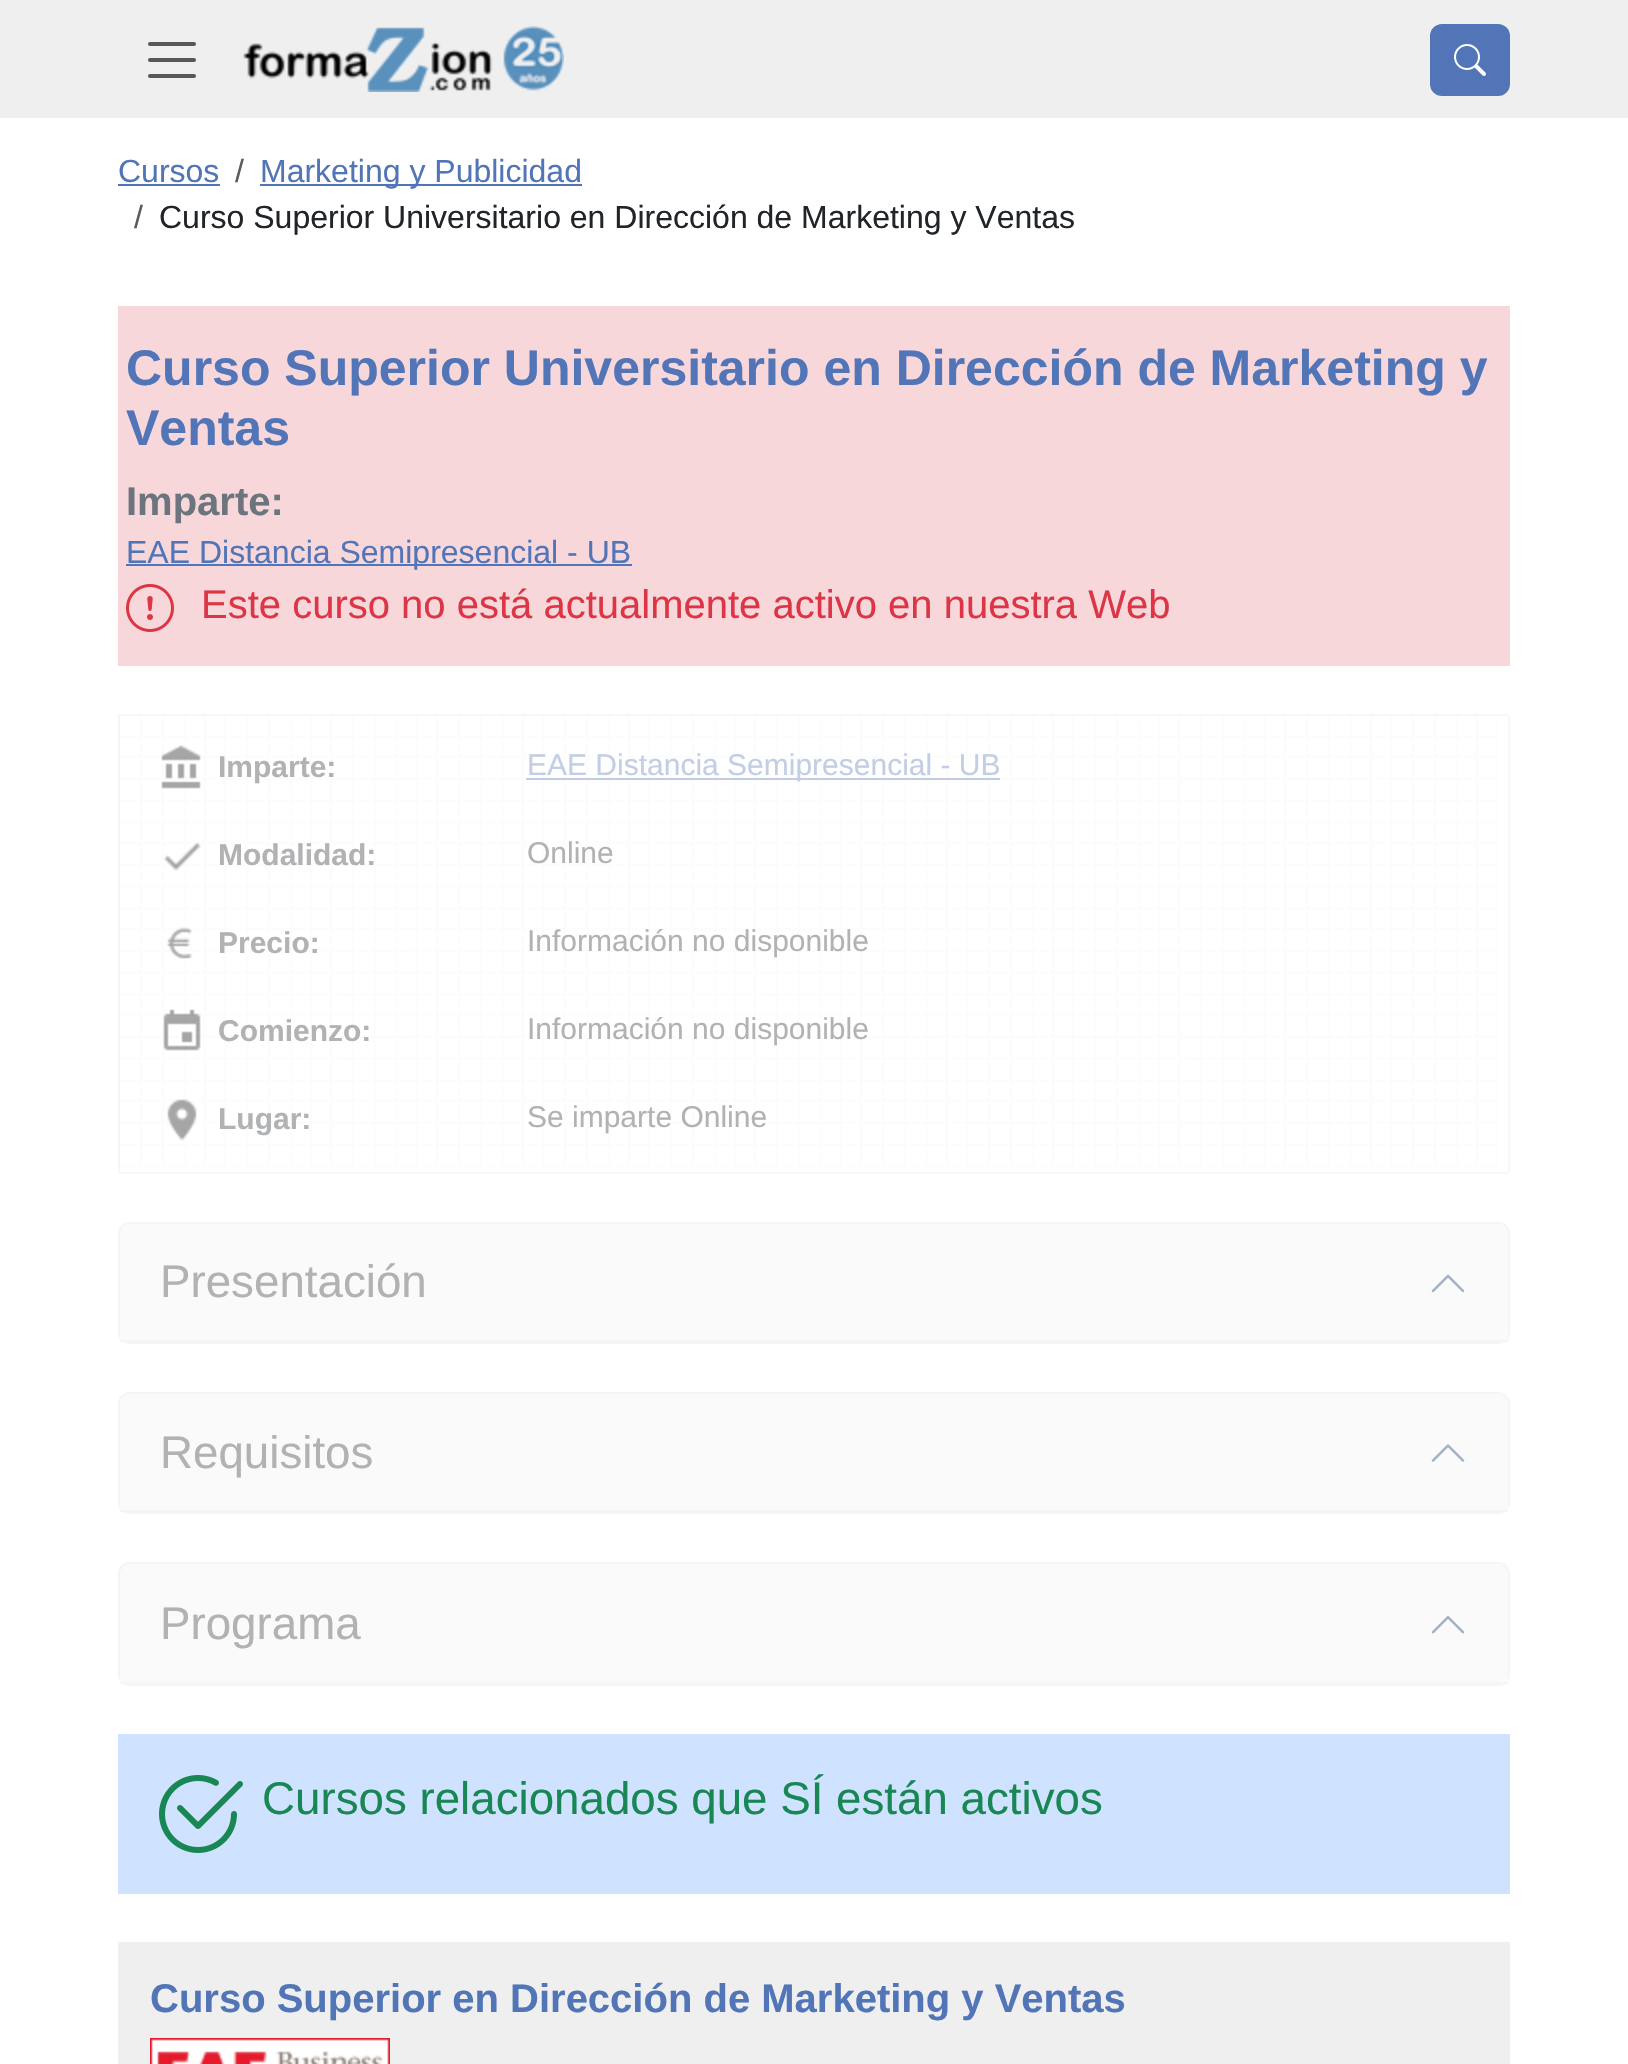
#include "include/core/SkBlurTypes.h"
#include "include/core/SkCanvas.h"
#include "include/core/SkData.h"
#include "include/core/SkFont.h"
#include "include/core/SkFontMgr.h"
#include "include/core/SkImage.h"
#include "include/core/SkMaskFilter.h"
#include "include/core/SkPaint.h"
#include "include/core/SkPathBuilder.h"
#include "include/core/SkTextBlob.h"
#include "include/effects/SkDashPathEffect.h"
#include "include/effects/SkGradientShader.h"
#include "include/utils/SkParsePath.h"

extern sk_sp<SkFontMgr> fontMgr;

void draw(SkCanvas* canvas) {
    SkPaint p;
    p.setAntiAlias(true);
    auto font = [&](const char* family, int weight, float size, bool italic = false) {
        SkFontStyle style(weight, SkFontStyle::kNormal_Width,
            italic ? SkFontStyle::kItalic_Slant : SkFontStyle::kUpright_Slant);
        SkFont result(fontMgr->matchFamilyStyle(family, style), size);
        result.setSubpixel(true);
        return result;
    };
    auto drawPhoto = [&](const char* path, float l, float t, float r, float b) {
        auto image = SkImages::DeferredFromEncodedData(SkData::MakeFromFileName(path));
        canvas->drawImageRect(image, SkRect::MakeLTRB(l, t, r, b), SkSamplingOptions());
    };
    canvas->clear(0xFFFFFFFF);
    p.setColor(0xFFEFEFEF);
    canvas->drawRect(SkRect::MakeLTRB(0, 0, 1628, 118), p);
    p.setStyle(SkPaint::kStroke_Style);
    p.setStrokeWidth(4);
    p.setStrokeCap(SkPaint::kRound_Cap);
    p.setColor(0xFF55585B);
    canvas->drawPath(SkPathBuilder().moveTo(150, 44).lineTo(194, 44).moveTo(150, 60).lineTo(194, 60).moveTo(150, 76).lineTo(194, 76).detach(), p);
    drawPhoto("media/1.png", 243, 26, 564, 92);
    p.setStyle(SkPaint::kFill_Style);
    p.setColor(0xFF5275B7);
    canvas->drawRoundRect(SkRect::MakeLTRB(1430, 24, 1510, 96), 12, 12, p);
    drawPhoto("media/2.png", 1454, 44, 1486, 76);
    auto font1 = font("Liberation Sans", 400, 32);
    canvas->drawString("Cursos", 118, 182, font1, p);
    canvas->drawRect(SkRect::MakeLTRB(118, 184, 220, 186), p);
    p.setColor(0xFF595C5F);
    canvas->drawString("/", 235, 182, font1, p);
    p.setColor(0xFF5275B7);
    canvas->drawRect(SkRect::MakeLTRB(260, 184, 582, 186), p);
    canvas->drawString("Marketing y Publicidad", 260, 182, font1, p);
    p.setColor(0xFF595C5F);
    canvas->drawString("/", 134, 228, font1, p);
    p.setColor(0xFF212529);
    canvas->drawString("Curso Superior Universitario en Dirección de Marketing y Ventas", 159, 228, font1, p);
    p.setColor(0xFFF8D7DA);
    canvas->drawRect(SkRect::MakeLTRB(118, 306, 1510, 666), p);
    auto font2 = font("Liberation Sans", 700, 50);
    p.setColor(0xFF5275B7);
    canvas->drawString("Curso Superior Universitario en Dirección de Marketing y", 126, 385, font2, p);
    canvas->drawString("Ventas", 126, 445, font2, p);
    auto font3 = font("Liberation Sans", 700, 40);
    p.setColor(0xFF6C757D);
    canvas->drawString("Imparte:", 126, 515, font3, p);
    p.setColor(0xFF5275B7);
    canvas->drawRect(SkRect::MakeLTRB(126, 564, 632, 566), p);
    canvas->drawString("EAE Distancia Semipresencial - UB", 126, 563, font1, p);
    drawPhoto("media/3.png", 126, 584, 174, 632);
    auto font4 = font("Liberation Sans", 400, 40);
    p.setColor(0xFFDC3545);
    canvas->drawString("Este curso no está actualmente activo en nuestra Web", 201, 618, font4, p);
    drawPhoto("media/4.png", 118, 714, 1497, 1167);
    p.setStyle(SkPaint::kStroke_Style);
    p.setStrokeWidth(2);
    p.setStrokeCap(SkPaint::kButt_Cap);
    p.setColor(0x59EAEAEA);
    canvas->drawRect(SkRect::MakeLTRB(119, 715, 1509, 1173), p);
    drawPhoto("media/5.png", 161, 745, 201, 789);
    auto font5 = font("Liberation Sans", 700, 30);
    p.setStyle(SkPaint::kFill_Style);
    p.setColor(0xFFB1B2B4);
    canvas->drawString("Imparte:", 218, 777, font5, p);
    p.setColor(0xFFC1CDE4);
    canvas->drawRect(SkRect::MakeLTRB(526, 778, 1000, 780), p);
    auto font6 = font("Liberation Sans", 400, 30);
    p.setColor(0xFFC2CEE5);
    canvas->drawString("EAE Distancia Semipresencial - UB", 527, 775, font6, p);
    drawPhoto("media/6.png", 164, 842, 201, 871);
    p.setColor(0xFFB1B2B4);
    canvas->drawString("Modalidad:", 218, 865, font5, p);
    canvas->drawString("Online", 527, 863, font6, p);
    drawPhoto("media/7.png", 167, 927, 193, 959);
    canvas->drawString("Precio:", 218, 953, font5, p);
    canvas->drawString("Información no disponible", 527, 951, font6, p);
    drawPhoto("media/8.png", 163, 1009, 201, 1051);
    canvas->drawString("Comienzo:", 218, 1041, font5, p);
    canvas->drawString("Información no disponible", 527, 1039, font6, p);
    drawPhoto("media/9.png", 167, 1099, 197, 1141);
    canvas->drawString("Lugar:", 218, 1129, font5, p);
    canvas->drawString("Se imparte Online", 527, 1127, font6, p);
    p.setStyle(SkPaint::kStroke_Style);
    p.setColor(0xFFF3F5F6);
    canvas->drawRoundRect(SkRect::MakeLTRB(119, 1223, 1509, 1343), 11, 11, p);
    p.setStyle(SkPaint::kFill_Style);
    p.setColor(0xFFFAFAFA);
    canvas->drawPath(SkPathBuilder().moveTo(130, 1224).lineTo(1498, 1224).cubicTo(1503.5f, 1224, 1508, 1228.5f, 1508, 1234).lineTo(1508, 1342).lineTo(120, 1342).lineTo(120, 1234).cubicTo(120, 1228.5f, 124.5f, 1224, 130, 1224).close().detach(), p);
    p.setColor(0xFFF3F5F6);
    canvas->drawRect(SkRect::MakeLTRB(120, 1340, 1508, 1342), p);
    auto font7 = font("Liberation Sans", 400, 45.7f);
    p.setColor(0xFFB1B2B4);
    canvas->drawString("Presentación", 160, 1297, font7, p);
    drawPhoto("media/10.png", 1431, 1274, 1465, 1293);
    p.setStyle(SkPaint::kStroke_Style);
    p.setColor(0xFFF3F5F6);
    canvas->drawRoundRect(SkRect::MakeLTRB(119, 1393, 1509, 1513), 11, 11, p);
    p.setStyle(SkPaint::kFill_Style);
    p.setColor(0xFFFAFAFA);
    canvas->drawPath(SkPathBuilder().moveTo(130, 1394).lineTo(1498, 1394).cubicTo(1503.5f, 1394, 1508, 1398.5f, 1508, 1404).lineTo(1508, 1512).lineTo(120, 1512).lineTo(120, 1404).cubicTo(120, 1398.5f, 124.5f, 1394, 130, 1394).close().detach(), p);
    p.setColor(0xFFF3F5F6);
    canvas->drawRect(SkRect::MakeLTRB(120, 1510, 1508, 1512), p);
    p.setColor(0xFFB1B2B4);
    canvas->drawString("Requisitos", 160, 1468, font7, p);
    drawPhoto("media/11.png", 1431, 1444, 1465, 1462);
    p.setStyle(SkPaint::kStroke_Style);
    p.setColor(0xFFF3F5F6);
    canvas->drawRoundRect(SkRect::MakeLTRB(119, 1563, 1509, 1685), 11, 11, p);
    p.setStyle(SkPaint::kFill_Style);
    p.setColor(0xFFFAFAFA);
    canvas->drawPath(SkPathBuilder().moveTo(130, 1564).lineTo(1498, 1564).cubicTo(1503.5f, 1564, 1508, 1568.5f, 1508, 1574).lineTo(1508, 1684).lineTo(120, 1684).lineTo(120, 1574).cubicTo(120, 1568.5f, 124.5f, 1564, 130, 1564).close().detach(), p);
    p.setColor(0xFFF3F5F6);
    canvas->drawRect(SkRect::MakeLTRB(120, 1682, 1508, 1684), p);
    p.setColor(0xFFB1B2B4);
    canvas->drawString("Programa", 160, 1639, font7, p);
    drawPhoto("media/12.png", 1431, 1616, 1465, 1634);
    p.setColor(0xFFCFE2FF);
    canvas->drawRect(SkRect::MakeLTRB(118, 1734, 1510, 1894), p);
    drawPhoto("media/13.png", 159, 1775, 243, 1853);
    p.setColor(0xFF198754);
    canvas->drawString("Cursos relacionados que SÍ están activos", 262, 1814, font7, p);
    p.setColor(0xFFEFEFEF);
    canvas->drawRect(SkRect::MakeLTRB(118, 1942, 1510, 2064), p);
    p.setColor(0xFF5275B7);
    canvas->drawString("Curso Superior en Dirección de Marketing y Ventas", 150, 2012, font3, p);
    drawPhoto("media/14.png", 150, 2038, 390, 2064);
}
